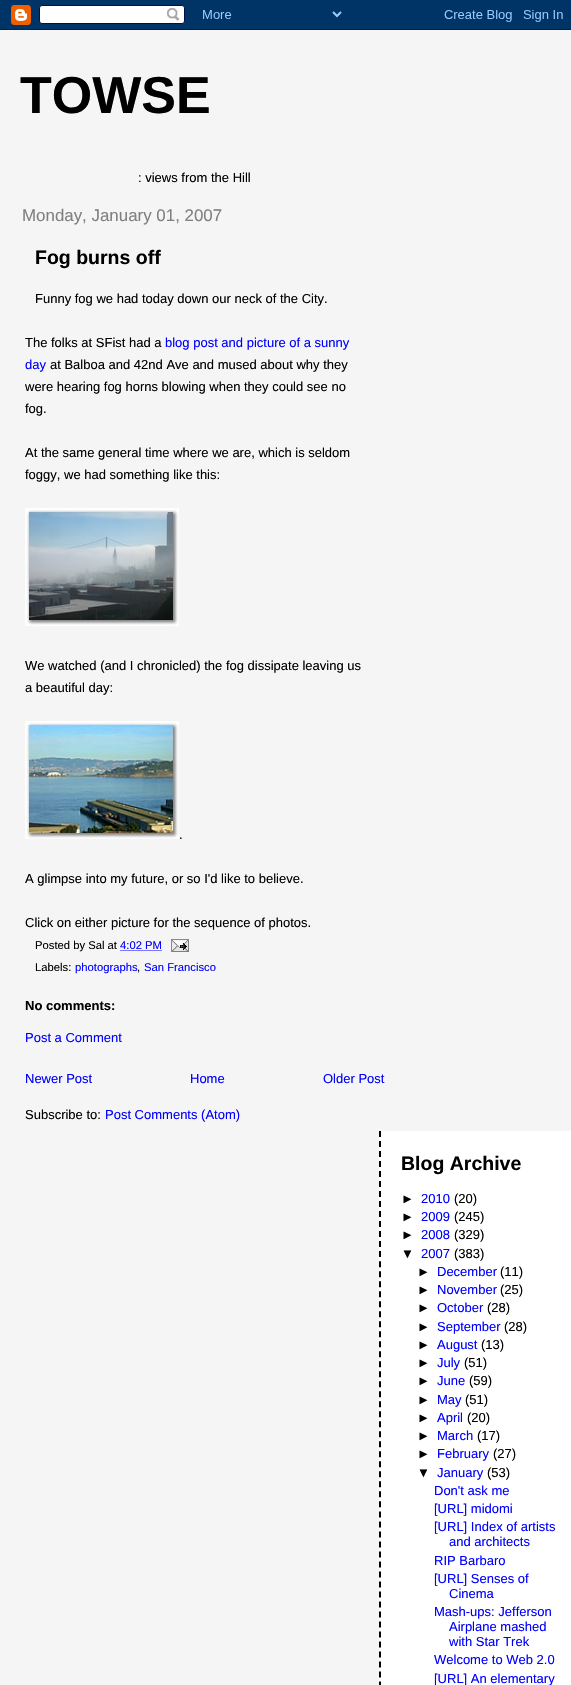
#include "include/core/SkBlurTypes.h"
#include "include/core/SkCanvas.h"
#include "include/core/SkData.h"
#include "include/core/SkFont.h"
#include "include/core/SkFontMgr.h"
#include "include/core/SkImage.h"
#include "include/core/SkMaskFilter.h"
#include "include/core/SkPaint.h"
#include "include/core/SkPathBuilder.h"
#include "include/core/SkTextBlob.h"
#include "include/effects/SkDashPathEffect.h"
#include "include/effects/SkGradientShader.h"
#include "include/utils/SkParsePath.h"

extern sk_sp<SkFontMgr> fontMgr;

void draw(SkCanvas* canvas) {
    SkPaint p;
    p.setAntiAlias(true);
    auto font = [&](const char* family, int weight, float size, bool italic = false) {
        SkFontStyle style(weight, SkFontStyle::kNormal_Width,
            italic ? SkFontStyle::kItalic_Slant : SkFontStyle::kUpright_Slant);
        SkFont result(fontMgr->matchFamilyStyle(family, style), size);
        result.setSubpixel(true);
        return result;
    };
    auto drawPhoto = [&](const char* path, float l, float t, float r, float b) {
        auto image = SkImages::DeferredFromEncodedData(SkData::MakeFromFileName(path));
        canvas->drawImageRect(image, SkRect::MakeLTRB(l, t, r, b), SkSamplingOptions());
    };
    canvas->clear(0xFFF5F5F5);
    drawPhoto("media/1.png", 0, 0, 571, 30);
    auto font1 = font("Liberation Sans", 700, 52);
    p.setColor(0xFF000000);
    canvas->drawString("TOWSE", 20, 113, font1, p);
    auto font2 = font("Liberation Sans", 400, 13);
    canvas->drawString(": views from the Hill", 138, 182, font2, p);
    auto font3 = font("Liberation Sans", 400, 16.9f);
    p.setColor(0xFF808080);
    canvas->drawString("Monday, January 01, 2007", 22, 221, font3, p);
    auto font4 = font("Liberation Sans", 700, 19.5f);
    p.setColor(0xFF000000);
    canvas->drawString("Fog burns off", 35, 264, font4, p);
    canvas->drawString("Funny fog we had today down our neck of the City.", 35, 303, font2, p);
    canvas->drawString("The folks at SFist had a", 25, 347, font2, p);
    p.setColor(0xFF0000FF);
    canvas->drawString("blog post and picture of a sunny", 165, 347, font2, p);
    canvas->drawString("day", 25, 369, font2, p);
    p.setColor(0xFF000000);
    {
        const struct { const char* s; float x, y; } items[] = {
            {"at Balboa and 42nd Ave and mused about why they", 50, 369},
            {"were hearing fog horns blowing when they could see no", 25, 391},
            {"fog.", 25, 413},
            {"At the same general time where we are, which is seldom", 25, 457},
            {"foggy, we had something like this:", 25, 479},
        };
        for (auto [s, x, y] : items) {
            canvas->drawString(s, x, y, font2, p);
        }
    }
    drawPhoto("media/2.png", 25, 508, 179, 626);
    canvas->drawString("We watched (and I chronicled) the fog dissipate leaving us", 25, 670, font2, p);
    canvas->drawString("a beautiful day:", 25, 692, font2, p);
    drawPhoto("media/3.png", 25, 721, 179, 839);
    {
        const struct { const char* s; float x, y; } items[] = {
            {".", 179, 839},
            {"A glimpse into my future, or so I'd like to believe.", 25, 883},
            {"Click on either picture for the sequence of photos.", 25, 927},
        };
        for (auto [s, x, y] : items) {
            canvas->drawString(s, x, y, font2, p);
        }
    }
    auto font5 = font("Liberation Sans", 400, 11.25f);
    canvas->drawString("Posted by Sal at", 35, 949, font5, p);
    p.setColor(0xFF0000FF);
    canvas->drawString("4:02 PM", 120, 949, font5, p);
    p.setStyle(SkPaint::kStroke_Style);
    p.setStrokeWidth(1);
    p.setPathEffect(SkDashPathEffect::Make({{1, 1}}, 0));
    canvas->drawPath(SkPathBuilder().moveTo(120.5f, 950.5f).lineTo(162.5f, 950.5f).detach(), p);
    p.setPathEffect(nullptr);
    drawPhoto("media/4.png", 171, 939, 189, 952);
    p.setStyle(SkPaint::kFill_Style);
    p.setColor(0xFF000000);
    canvas->drawString("Labels:", 35, 971, font5, p);
    p.setColor(0xFF0000FF);
    canvas->drawString("photographs", 75, 971, font5, p);
    p.setColor(0xFF000000);
    canvas->drawString(",", 137, 971, font5, p);
    p.setColor(0xFF0000FF);
    canvas->drawString("San Francisco", 144, 971, font5, p);
    auto font6 = font("Liberation Sans", 700, 13);
    p.setColor(0xFF000000);
    canvas->drawString("No comments:", 25, 1010, font6, p);
    p.setColor(0xFF0000FF);
    {
        const struct { const char* s; float x, y; } items[] = {
            {"Post a Comment", 25, 1042},
            {"Newer Post", 25, 1083},
            {"Home", 190, 1083},
            {"Older Post", 323, 1083},
        };
        for (auto [s, x, y] : items) {
            canvas->drawString(s, x, y, font2, p);
        }
    }
    p.setColor(0xFF000000);
    canvas->drawString("Subscribe to:", 25, 1119, font2, p);
    p.setColor(0xFF0000FF);
    canvas->drawString("Post Comments (Atom)", 105, 1119, font2, p);
    p.setColor(0xFFFFFFFF);
    canvas->drawRect(SkRect::MakeLTRB(379, 1131, 571, 1685), p);
    p.setStyle(SkPaint::kStroke_Style);
    p.setStrokeWidth(2);
    p.setColor(0xFF000000);
    p.setPathEffect(SkDashPathEffect::Make({{6, 4.01f}}, 0));
    canvas->drawPath(SkPathBuilder().moveTo(380, 1131).lineTo(380, 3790).detach(), p);
    p.setPathEffect(nullptr);
    p.setStyle(SkPaint::kFill_Style);
    canvas->drawString("Blog Archive", 401, 1170, font4, p);
    canvas->drawString("►", 401, 1203, font2, p);
    p.setColor(0xFF0000FF);
    canvas->drawString("2010", 421, 1203, font2, p);
    p.setColor(0xFF000000);
    canvas->drawString("(20)", 454, 1203, font2, p);
    canvas->drawString("►", 401, 1221, font2, p);
    p.setColor(0xFF0000FF);
    canvas->drawString("2009", 421, 1221, font2, p);
    p.setColor(0xFF000000);
    canvas->drawString("(245)", 454, 1221, font2, p);
    canvas->drawString("►", 401, 1239, font2, p);
    p.setColor(0xFF0000FF);
    canvas->drawString("2008", 421, 1239, font2, p);
    p.setColor(0xFF000000);
    canvas->drawString("(329)", 454, 1239, font2, p);
    canvas->drawString("▼", 401, 1258, font2, p);
    p.setColor(0xFF0000FF);
    canvas->drawString("2007", 421, 1258, font2, p);
    p.setColor(0xFF000000);
    canvas->drawString("(383)", 454, 1258, font2, p);
    canvas->drawString("►", 417, 1276, font2, p);
    p.setColor(0xFF0000FF);
    canvas->drawString("December", 437, 1276, font2, p);
    p.setColor(0xFF000000);
    canvas->drawString("(11)", 500, 1276, font2, p);
    canvas->drawString("►", 417, 1294, font2, p);
    p.setColor(0xFF0000FF);
    canvas->drawString("November", 437, 1294, font2, p);
    p.setColor(0xFF000000);
    canvas->drawString("(25)", 500, 1294, font2, p);
    canvas->drawString("►", 417, 1312, font2, p);
    p.setColor(0xFF0000FF);
    canvas->drawString("October", 437, 1312, font2, p);
    p.setColor(0xFF000000);
    canvas->drawString("(28)", 487, 1312, font2, p);
    canvas->drawString("►", 417, 1331, font2, p);
    p.setColor(0xFF0000FF);
    canvas->drawString("September", 437, 1331, font2, p);
    p.setColor(0xFF000000);
    canvas->drawString("(28)", 504, 1331, font2, p);
    canvas->drawString("►", 417, 1349, font2, p);
    p.setColor(0xFF0000FF);
    canvas->drawString("August", 437, 1349, font2, p);
    p.setColor(0xFF000000);
    canvas->drawString("(13)", 481, 1349, font2, p);
    canvas->drawString("►", 417, 1367, font2, p);
    p.setColor(0xFF0000FF);
    canvas->drawString("July", 437, 1367, font2, p);
    p.setColor(0xFF000000);
    canvas->drawString("(51)", 464, 1367, font2, p);
    canvas->drawString("►", 417, 1385, font2, p);
    p.setColor(0xFF0000FF);
    canvas->drawString("June", 437, 1385, font2, p);
    p.setColor(0xFF000000);
    canvas->drawString("(59)", 469, 1385, font2, p);
    canvas->drawString("►", 417, 1404, font2, p);
    p.setColor(0xFF0000FF);
    canvas->drawString("May", 437, 1404, font2, p);
    p.setColor(0xFF000000);
    canvas->drawString("(51)", 465, 1404, font2, p);
    canvas->drawString("►", 417, 1422, font2, p);
    p.setColor(0xFF0000FF);
    canvas->drawString("April", 437, 1422, font2, p);
    p.setColor(0xFF000000);
    canvas->drawString("(20)", 467, 1422, font2, p);
    canvas->drawString("►", 417, 1440, font2, p);
    p.setColor(0xFF0000FF);
    canvas->drawString("March", 437, 1440, font2, p);
    p.setColor(0xFF000000);
    canvas->drawString("(17)", 477, 1440, font2, p);
    canvas->drawString("►", 417, 1458, font2, p);
    p.setColor(0xFF0000FF);
    canvas->drawString("February", 437, 1458, font2, p);
    p.setColor(0xFF000000);
    canvas->drawString("(27)", 493, 1458, font2, p);
    canvas->drawString("▼", 417, 1477, font2, p);
    p.setColor(0xFF0000FF);
    canvas->drawString("January", 437, 1477, font2, p);
    p.setColor(0xFF000000);
    canvas->drawString("(53)", 487, 1477, font2, p);
    p.setColor(0xFF0000FF);
    {
        const struct { const char* s; float x, y; } items[] = {
            {"Don't ask me", 434, 1495},
            {"[URL] midomi", 434, 1513},
            {"[URL] Index of artists", 434, 1531},
            {"and architects", 449, 1546},
            {"RIP Barbaro", 434, 1565},
            {"[URL] Senses of", 434, 1583},
            {"Cinema", 449, 1598},
            {"Mash-ups: Jefferson", 434, 1616},
            {"Airplane mashed", 449, 1631},
            {"with Star Trek", 449, 1646},
            {"Welcome to Web 2.0", 434, 1664},
            {"[URL] An elementary", 434, 1683},
        };
        for (auto [s, x, y] : items) {
            canvas->drawString(s, x, y, font2, p);
        }
    }
}
